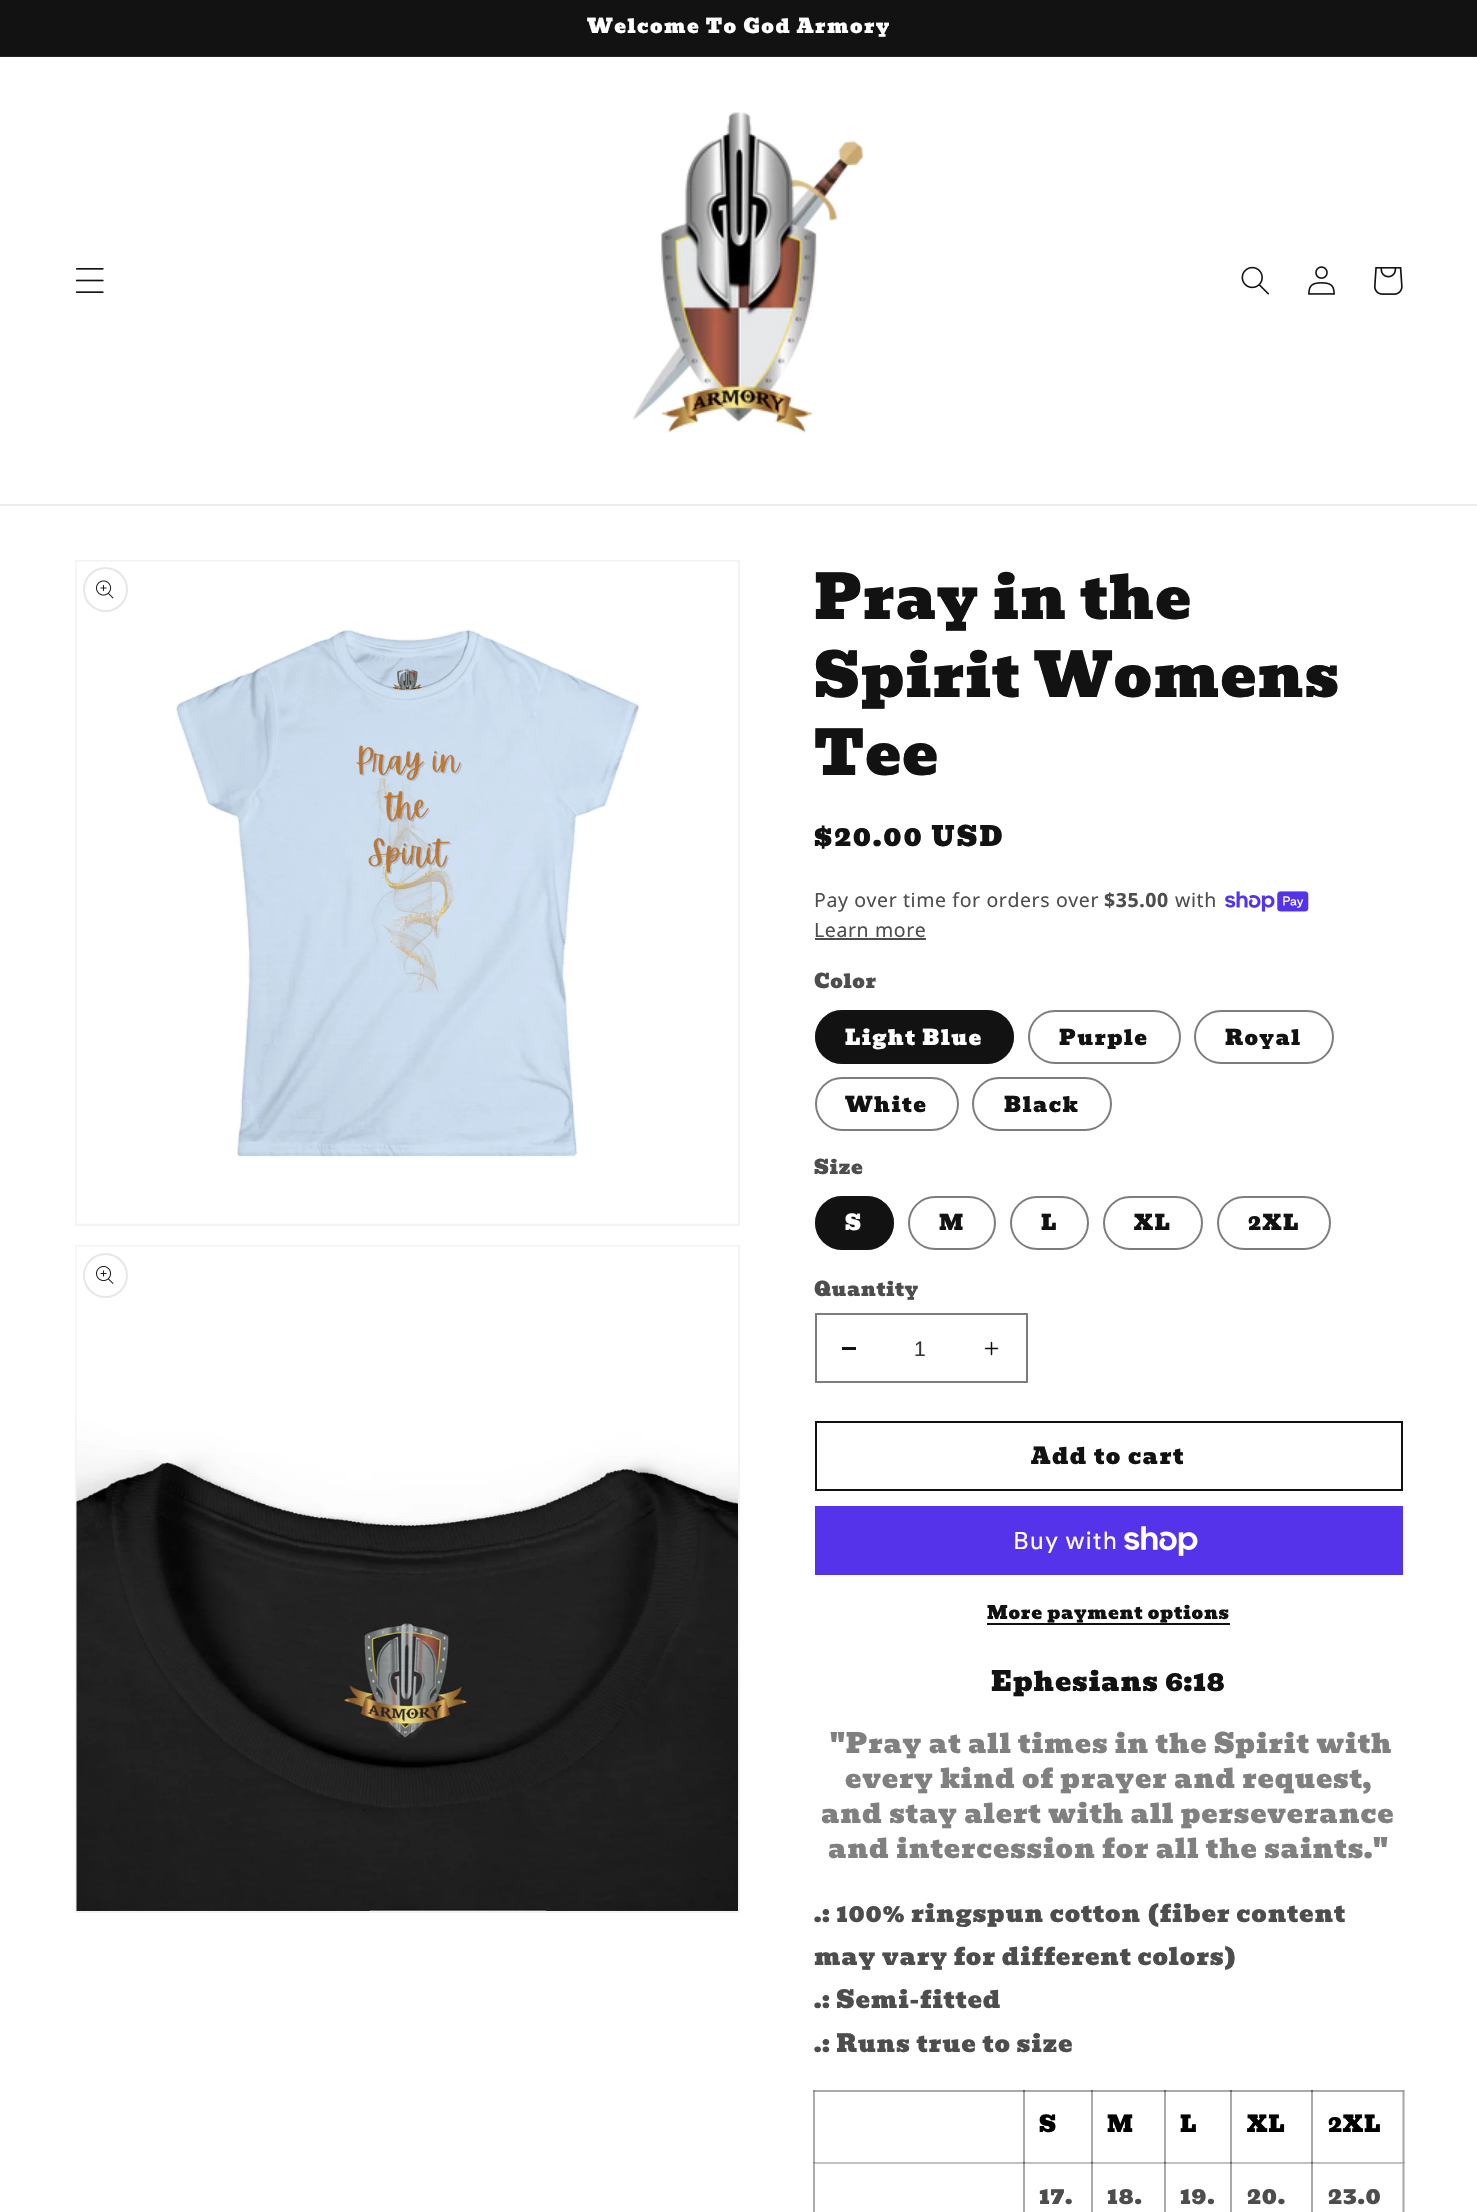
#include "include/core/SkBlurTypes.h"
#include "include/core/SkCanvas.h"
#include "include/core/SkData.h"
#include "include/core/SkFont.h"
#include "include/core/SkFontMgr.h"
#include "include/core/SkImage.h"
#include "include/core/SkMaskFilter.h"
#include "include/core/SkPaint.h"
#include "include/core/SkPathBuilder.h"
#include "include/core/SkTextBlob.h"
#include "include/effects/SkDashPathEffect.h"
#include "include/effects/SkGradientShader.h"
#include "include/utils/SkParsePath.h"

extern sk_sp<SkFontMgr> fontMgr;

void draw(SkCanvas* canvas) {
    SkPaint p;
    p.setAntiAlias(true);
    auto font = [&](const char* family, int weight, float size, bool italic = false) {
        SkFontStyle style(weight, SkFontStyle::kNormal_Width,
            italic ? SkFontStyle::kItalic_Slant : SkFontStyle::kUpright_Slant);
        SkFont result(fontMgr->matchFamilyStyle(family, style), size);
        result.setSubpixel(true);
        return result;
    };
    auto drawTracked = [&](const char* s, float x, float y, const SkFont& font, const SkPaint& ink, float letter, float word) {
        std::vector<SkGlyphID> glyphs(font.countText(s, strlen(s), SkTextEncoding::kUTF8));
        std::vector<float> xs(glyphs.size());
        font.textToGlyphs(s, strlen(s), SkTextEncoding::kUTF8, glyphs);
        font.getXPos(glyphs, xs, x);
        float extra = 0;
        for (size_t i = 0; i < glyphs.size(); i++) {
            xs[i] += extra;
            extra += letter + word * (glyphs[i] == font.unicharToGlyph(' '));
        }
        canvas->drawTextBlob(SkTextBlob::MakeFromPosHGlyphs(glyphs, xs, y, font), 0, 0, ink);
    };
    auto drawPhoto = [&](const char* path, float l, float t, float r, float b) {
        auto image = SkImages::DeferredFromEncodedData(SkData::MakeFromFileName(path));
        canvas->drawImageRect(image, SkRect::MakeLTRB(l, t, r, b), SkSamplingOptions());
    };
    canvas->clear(0xFFFFFFFF);
    {
        const struct { float l, t, r, b; SkColor color; } items[] = {
            {1023, 2162, 1025, 2212, 0xFFAAAAAA},
            {1091, 2162, 1093, 2212, 0xFFAAAAAA},
            {1164, 2162, 1166, 2212, 0xFFAAAAAA},
            {1230, 2162, 1232, 2212, 0xFFAAAAAA},
            {1311, 2162, 1313, 2212, 0xFFAAAAAA},
            {0, 0, 1477, 56, 0xFF121212},
            {0, 56, 1477, 57, 0xFF252525},
        };
        for (auto [l, t, r, b, color] : items) {
            p.setColor(color);
            canvas->drawRect(SkRect::MakeLTRB(l, t, r, b), p);
        }
    }
    auto font1 = font("Bevan", 400, 19.5f);
    p.setColor(0xFFFFFFFF);
    drawTracked("Welcome To God Armory", 587, 33, font1, p, 1.5f, 0);
    p.setColor(0xFFECECEC);
    canvas->drawRect(SkRect::MakeLTRB(0, 504, 1477, 506), p);
    drawPhoto("media/1.png", 75, 268, 104, 293);
    drawPhoto("media/2.png", 632, 112, 864, 433);
    drawPhoto("media/3.png", 1241, 266, 1269, 295);
    drawPhoto("media/4.png", 1308, 266, 1335, 295);
    drawPhoto("media/5.png", 1374, 267, 1403, 295);
    p.setStyle(SkPaint::kStroke_Style);
    p.setStrokeWidth(2);
    p.setColor(0xFFF3F3F3);
    canvas->drawRect(SkRect::MakeLTRB(76, 561, 739, 1225), p);
    drawPhoto("media/6.png", 76, 561, 738, 1224);
    p.setColor(0xFFE7E7E7);
    canvas->drawCircle(105.5f, 589.5f, 21.5f, p);
    drawPhoto("media/7.png", 96, 580, 114, 599);
    p.setColor(0xFFF3F3F3);
    canvas->drawRect(SkRect::MakeLTRB(76, 1246, 739, 1912), p);
    drawPhoto("media/8.png", 76, 1246, 738, 1911);
    p.setColor(0xFFE7E7E7);
    canvas->drawCircle(105.5f, 1275.5f, 21.5f, p);
    drawPhoto("media/9.png", 96, 1266, 114, 1284);
    auto font2 = font("Bevan", 400, 60);
    p.setStyle(SkPaint::kFill_Style);
    p.setColor(0xFF121212);
    {
        const struct { const char* s; float x, y; } items[] = {
            {"Pray in the", 814, 619},
            {"Spirit Womens", 814, 697},
            {"Tee", 814, 775},
        };
        for (auto [s, x, y] : items) {
            drawTracked(s, x, y, font2, p, 0.9f, 0);
        }
    }
    auto font3 = font("Bevan", 400, 27);
    drawTracked("$20.00 USD", 814, 846, font3, p, 2, 0);
    auto font4 = font("Noto Sans", 400, 19.5f);
    p.setColor(0xFF4D4D4D);
    drawTracked("Pay over time for orders over", 814, 907, font4, p, 0.6f, 0);
    auto font5 = font("Noto Sans", 700, 19.5f);
    drawTracked("$35.00", 1104, 907, font5, p, 0.6f, 0);
    drawTracked("with", 1175, 907, font4, p, 0.6f, 0);
    drawPhoto("media/10.png", 1225, 891, 1309, 912);
    drawTracked("Learn more", 814, 937, font4, p, 0.6f, 0);
    canvas->drawRect(SkRect::MakeLTRB(815, 938, 926, 940), p);
    drawTracked("Color", 814, 988, font1, p, 0.6f, 0);
    p.setColor(0xFF121212);
    canvas->drawRoundRect(SkRect::MakeLTRB(815, 1010, 1014, 1064), 27, 27, p);
    p.setStyle(SkPaint::kStroke_Style);
    p.setColor(0x8C121212);
    canvas->drawRoundRect(SkRect::MakeLTRB(816, 1011, 1013, 1063), 26, 26, p);
    auto font6 = font("Bevan", 400, 21);
    p.setStyle(SkPaint::kFill_Style);
    p.setColor(0xFFFFFFFF);
    drawTracked("Light Blue", 845, 1045, font6, p, 1.5f, 0);
    p.setStyle(SkPaint::kStroke_Style);
    p.setColor(0xFF7D7D7D);
    canvas->drawRoundRect(SkRect::MakeLTRB(1029, 1011, 1180, 1063), 26, 26, p);
    p.setStyle(SkPaint::kFill_Style);
    p.setColor(0xFF121212);
    drawTracked("Purple", 1059, 1045, font6, p, 1.5f, 0);
    p.setStyle(SkPaint::kStroke_Style);
    p.setColor(0xFF7D7D7D);
    canvas->drawRoundRect(SkRect::MakeLTRB(1195, 1011, 1333, 1063), 26, 26, p);
    p.setStyle(SkPaint::kFill_Style);
    p.setColor(0xFF121212);
    drawTracked("Royal", 1225, 1045, font6, p, 1.5f, 0);
    p.setStyle(SkPaint::kStroke_Style);
    p.setColor(0xFF7D7D7D);
    canvas->drawRoundRect(SkRect::MakeLTRB(816, 1078, 958, 1130), 26, 26, p);
    p.setStyle(SkPaint::kFill_Style);
    p.setColor(0xFF121212);
    drawTracked("White", 845, 1112, font6, p, 1.5f, 0);
    p.setStyle(SkPaint::kStroke_Style);
    p.setColor(0xFF7D7D7D);
    canvas->drawRoundRect(SkRect::MakeLTRB(973, 1078, 1111, 1130), 26, 26, p);
    p.setStyle(SkPaint::kFill_Style);
    p.setColor(0xFF121212);
    drawTracked("Black", 1004, 1112, font6, p, 1.5f, 0);
    p.setColor(0xFF4D4D4D);
    drawTracked("Size", 814, 1174, font1, p, 0.6f, 0);
    p.setColor(0xFF121212);
    canvas->drawRoundRect(SkRect::MakeLTRB(815, 1196, 894, 1250), 27, 27, p);
    p.setStyle(SkPaint::kStroke_Style);
    p.setColor(0x8C121212);
    canvas->drawRoundRect(SkRect::MakeLTRB(816, 1197, 893, 1249), 26, 26, p);
    p.setStyle(SkPaint::kFill_Style);
    p.setColor(0xFFFFFFFF);
    drawTracked("S", 845, 1230, font6, p, 1.5f, 0);
    p.setStyle(SkPaint::kStroke_Style);
    p.setColor(0xFF7D7D7D);
    canvas->drawRoundRect(SkRect::MakeLTRB(909, 1197, 995, 1249), 26, 26, p);
    p.setStyle(SkPaint::kFill_Style);
    p.setColor(0xFF121212);
    drawTracked("M", 939, 1230, font6, p, 1.5f, 0);
    p.setStyle(SkPaint::kStroke_Style);
    p.setColor(0xFF7D7D7D);
    canvas->drawRoundRect(SkRect::MakeLTRB(1011, 1197, 1088, 1249), 26, 26, p);
    p.setStyle(SkPaint::kFill_Style);
    p.setColor(0xFF121212);
    drawTracked("L", 1041, 1230, font6, p, 1.5f, 0);
    p.setStyle(SkPaint::kStroke_Style);
    p.setColor(0xFF7D7D7D);
    canvas->drawRoundRect(SkRect::MakeLTRB(1104, 1197, 1202, 1249), 26, 26, p);
    p.setStyle(SkPaint::kFill_Style);
    p.setColor(0xFF121212);
    drawTracked("XL", 1134, 1230, font6, p, 1.5f, 0);
    p.setStyle(SkPaint::kStroke_Style);
    p.setColor(0xFF7D7D7D);
    canvas->drawRoundRect(SkRect::MakeLTRB(1218, 1197, 1330, 1249), 26, 26, p);
    p.setStyle(SkPaint::kFill_Style);
    p.setColor(0xFF121212);
    drawTracked("2XL", 1248, 1230, font6, p, 1.5f, 0);
    p.setColor(0xFF4D4D4D);
    drawTracked("Quantity", 814, 1296, font1, p, 0.6f, 0);
    p.setColor(0xFF121212);
    canvas->drawRect(SkRect::MakeLTRB(842, 1347, 856, 1350), p);
    drawPhoto("media/11.png", 984, 1341, 999, 1356);
    p.setStyle(SkPaint::kStroke_Style);
    p.setColor(0xFF7D7D7D);
    canvas->drawRect(SkRect::MakeLTRB(816, 1314, 1027, 1382), p);
    auto font7 = font("Liberation Sans", 400, 21);
    p.setStyle(SkPaint::kFill_Style);
    p.setColor(0xFF363636);
    canvas->drawString("1", 914, 1356, font7, p);
    p.setStyle(SkPaint::kStroke_Style);
    p.setColor(0xFF121212);
    canvas->drawRect(SkRect::MakeLTRB(816, 1422, 1402, 1490), p);
    auto font8 = font("Bevan", 400, 22.5f);
    p.setStyle(SkPaint::kFill_Style);
    drawTracked("Add to cart", 1031, 1464, font8, p, 1.5f, 0);
    p.setColor(0xFF5433EB);
    canvas->drawRect(SkRect::MakeLTRB(815, 1506, 1403, 1575), p);
    auto font9 = font("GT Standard", 400, 24);
    p.setColor(0xFFFFFFFF);
    drawTracked("Buy with", 1013, 1549, font9, p, 0.9f, 0);
    drawPhoto("media/12.png", 1124, 1526, 1198, 1556);
    auto font10 = font("Bevan", 400, 18);
    p.setColor(0xFF121212);
    drawTracked("More payment options", 987, 1619, font10, p, 0.75f, 0);
    canvas->drawRect(SkRect::MakeLTRB(987, 1623, 1230, 1625), p);
    drawTracked("Ephesians 6:18", 991, 1691, font3, p, 0.9f, 0);
    p.setColor(0xFF808080);
    {
        const struct { const char* s; float x, y; } items[] = {
            {"\"Pray at all times in the Spirit with", 830, 1753},
            {"every kind of prayer and request,", 845, 1788},
            {"and stay alert with all perseverance", 821, 1823},
            {"and intercession for all the saints.\"", 828, 1858},
        };
        for (auto [s, x, y] : items) {
            drawTracked(s, x, y, font3, p, 0.9f, 0);
        }
    }
    auto font11 = font("Bevan", 400, 24);
    p.setColor(0xFF4D4D4D);
    {
        const struct { const char* s; float x, y; } items[] = {
            {".: 100% ringspun cotton (fiber content", 814, 1922},
            {"may vary for different colors)", 814, 1965},
            {".: Semi-fitted", 814, 2008},
            {".: Runs true to size", 814, 2052},
        };
        for (auto [s, x, y] : items) {
            drawTracked(s, x, y, font11, p, 0.9f, 0);
        }
    }
    p.setStyle(SkPaint::kStroke_Style);
    p.setColor(0xFFD0D0D0);
    canvas->drawRect(SkRect::MakeLTRB(814, 2091, 1403, 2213), p);
    p.setStyle(SkPaint::kFill_Style);
    {
        const struct { float l, t, r, b; SkColor color; } items[] = {
            {1311, 2090, 1404, 2092, 0xFFAAAAAA},
            {1091, 2162, 1404, 2164, 0xFFEDEDED},
            {1403, 2162, 1405, 2212, 0x33121212},
            {1403, 2090, 1405, 2163, 0x33121212},
            {1311, 2162, 1313, 2164, 0xFFC1C1C1},
            {1311, 2162, 1404, 2164, 0x33121212},
            {1311, 2090, 1313, 2163, 0x33121212},
            {1230, 2090, 1313, 2092, 0x33121212},
            {1311, 2090, 1313, 2163, 0x33121212},
            {1230, 2162, 1232, 2164, 0xFFC1C1C1},
            {1230, 2162, 1313, 2164, 0x33121212},
            {1230, 2090, 1232, 2163, 0x33121212},
            {1164, 2090, 1232, 2092, 0x33121212},
            {1230, 2090, 1232, 2163, 0x33121212},
            {1164, 2162, 1166, 2164, 0xFFC1C1C1},
            {1164, 2162, 1232, 2164, 0x33121212},
            {1164, 2090, 1166, 2163, 0x33121212},
            {1091, 2090, 1166, 2092, 0x33121212},
            {1164, 2090, 1166, 2163, 0x33121212},
            {1091, 2162, 1093, 2164, 0xFF9E9E9E},
            {813, 2162, 1092, 2164, 0xFFEDEDED},
            {1091, 2162, 1092, 2164, 0xFFC1C1C1},
            {1091, 2162, 1166, 2164, 0x33121212},
            {1091, 2090, 1093, 2163, 0x33121212},
            {1023, 2090, 1092, 2092, 0x33121212},
            {1091, 2090, 1093, 2163, 0x33121212},
            {1023, 2162, 1025, 2164, 0xFFC1C1C1},
            {1023, 2162, 1092, 2164, 0x33121212},
            {1023, 2090, 1025, 2163, 0x33121212},
            {813, 2090, 1025, 2092, 0x33121212},
            {1023, 2090, 1025, 2163, 0x33121212},
            {813, 2162, 815, 2212, 0x33121212},
            {813, 2162, 1025, 2164, 0x33121212},
            {813, 2090, 815, 2163, 0x33121212},
        };
        for (auto [l, t, r, b, color] : items) {
            p.setColor(color);
            canvas->drawRect(SkRect::MakeLTRB(l, t, r, b), p);
        }
    }
    p.setColor(0xFF000000);
    {
        const struct { const char* s; float x, y; } items[] = {
            {"S", 1039, 2132},
            {"M", 1107, 2132},
            {"L", 1180, 2132},
            {"XL", 1247, 2132},
            {"2XL", 1328, 2132},
        };
        for (auto [s, x, y] : items) {
            drawTracked(s, x, y, font8, p, 0.9f, 0);
        }
    }
    p.setColor(0xFF4D4D4D);
    {
        const struct { const char* s; float x, y; } items[] = {
            {"17.", 1039, 2204},
            {"18.", 1107, 2204},
            {"19.", 1180, 2204},
            {"20.", 1247, 2204},
            {"23.0", 1328, 2204},
        };
        for (auto [s, x, y] : items) {
            drawTracked(s, x, y, font8, p, 0.9f, 0);
        }
    }
}
